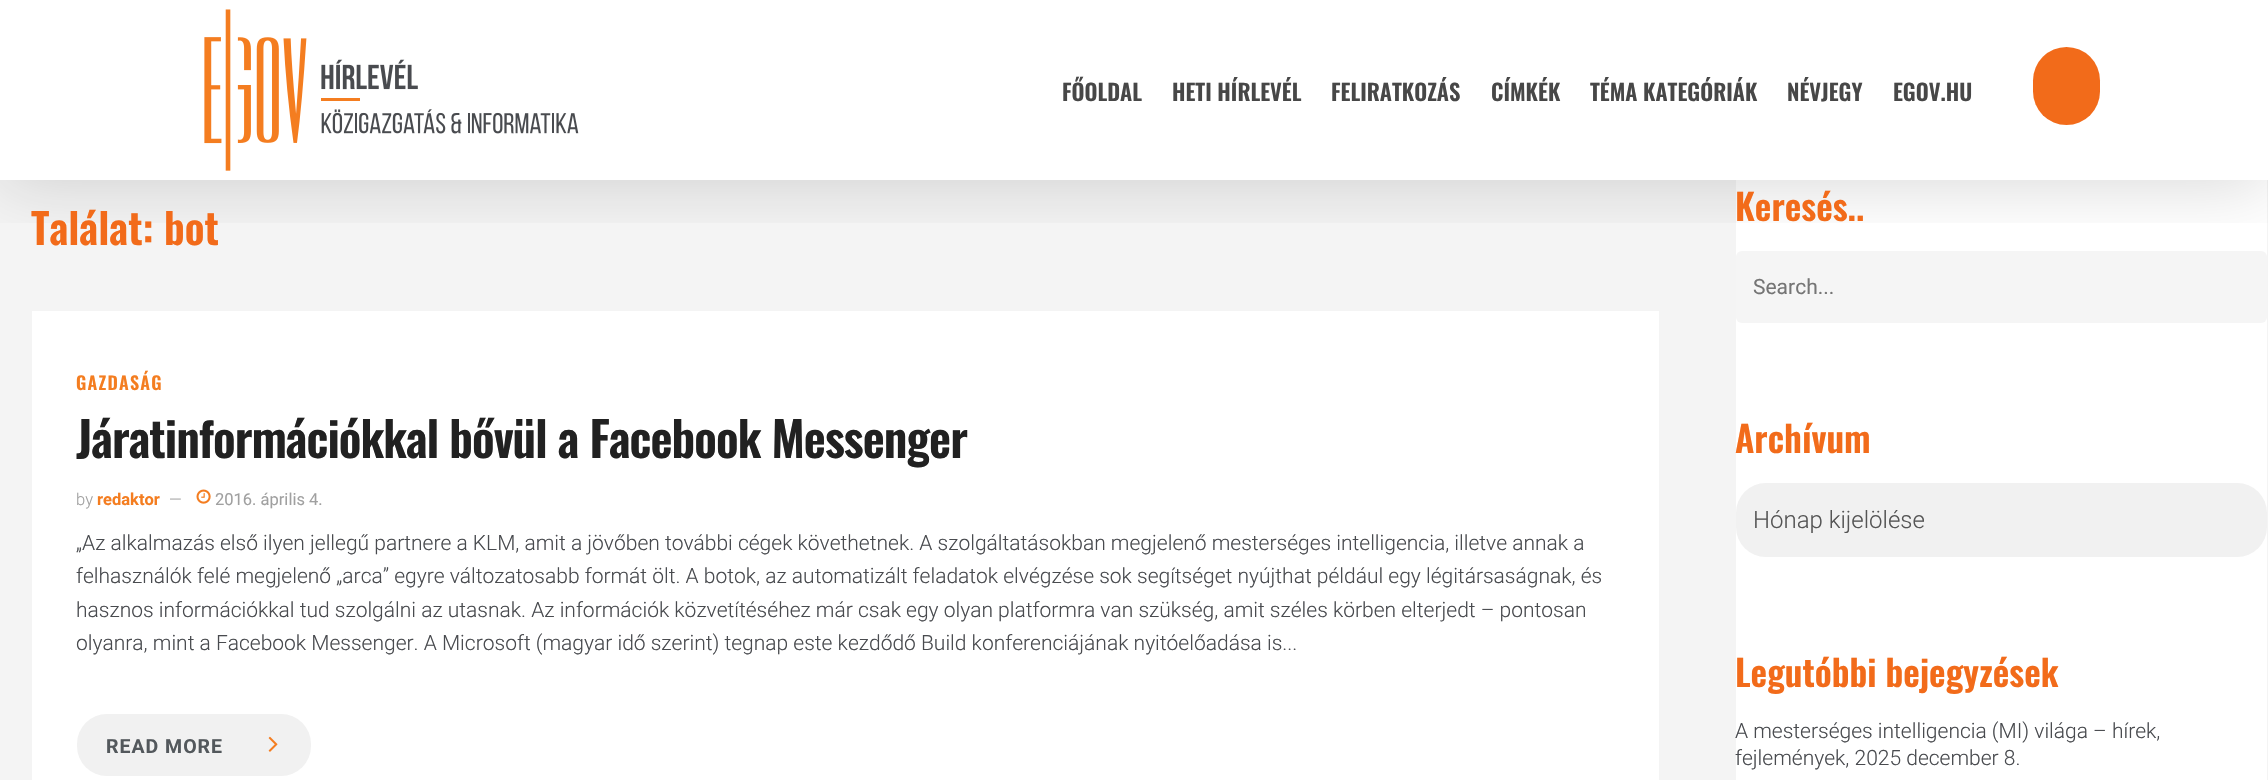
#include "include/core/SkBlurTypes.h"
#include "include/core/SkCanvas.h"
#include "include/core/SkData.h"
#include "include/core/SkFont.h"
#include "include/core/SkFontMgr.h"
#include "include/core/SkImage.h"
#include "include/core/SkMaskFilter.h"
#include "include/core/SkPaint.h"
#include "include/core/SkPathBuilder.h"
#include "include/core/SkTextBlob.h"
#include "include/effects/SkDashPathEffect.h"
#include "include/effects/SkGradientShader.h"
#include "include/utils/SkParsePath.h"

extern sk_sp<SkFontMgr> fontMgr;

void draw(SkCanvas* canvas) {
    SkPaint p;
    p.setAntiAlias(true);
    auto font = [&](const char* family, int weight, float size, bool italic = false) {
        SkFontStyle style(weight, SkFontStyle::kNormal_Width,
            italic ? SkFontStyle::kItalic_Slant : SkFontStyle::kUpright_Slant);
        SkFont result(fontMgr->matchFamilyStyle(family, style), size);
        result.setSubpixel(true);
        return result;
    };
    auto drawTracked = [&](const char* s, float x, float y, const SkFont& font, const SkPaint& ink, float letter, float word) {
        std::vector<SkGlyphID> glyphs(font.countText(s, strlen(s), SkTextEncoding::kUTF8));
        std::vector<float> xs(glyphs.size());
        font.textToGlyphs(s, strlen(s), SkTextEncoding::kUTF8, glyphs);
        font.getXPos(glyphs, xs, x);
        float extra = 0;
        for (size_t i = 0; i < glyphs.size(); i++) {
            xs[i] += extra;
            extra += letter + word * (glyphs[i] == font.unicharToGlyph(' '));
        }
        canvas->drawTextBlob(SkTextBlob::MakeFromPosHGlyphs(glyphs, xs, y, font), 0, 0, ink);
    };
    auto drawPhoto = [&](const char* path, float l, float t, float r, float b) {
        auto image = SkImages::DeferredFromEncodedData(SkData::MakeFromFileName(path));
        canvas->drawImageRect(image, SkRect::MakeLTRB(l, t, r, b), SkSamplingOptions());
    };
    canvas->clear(0xFFF4F4F4);
    p.setColor(0xFFFFFFFF);
    canvas->drawRect(SkRect::MakeLTRB(0, 0, 2268, 180), p);
    canvas->drawRect(SkRect::MakeLTRB(1736, 180, 2267, 780), p);
    p.setColor(0xFFF5F5F5);
    canvas->drawRoundRect(SkRect::MakeLTRB(1736, 251, 2267, 323), 6, 6, p);
    canvas->save();
    canvas->clipRect(SkRect::MakeLTRB(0, 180, 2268, 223));
    p.setColor(0x26000000);
    p.setMaskFilter(SkMaskFilter::MakeBlur(kNormal_SkBlurStyle, 34));
    canvas->drawRect(SkRect::MakeLTRB(0, 5, 2268, 185), p);
    p.setMaskFilter(nullptr);
    canvas->restore();
    drawPhoto("media/1.png", 204, 9, 579, 171);
    auto font1 = font("Oswald", 600, 22.5f);
    p.setColor(0xFF474747);
    {
        const struct { const char* s; float x, y; } items[] = {
            {"FŐOLDAL", 1062, 101},
            {"HETI HÍRLEVÉL", 1172, 101},
            {"FELIRATKOZÁS", 1331, 101},
            {"CÍMKÉK", 1491, 101},
            {"TÉMA KATEGÓRIÁK", 1590, 101},
            {"NÉVJEGY", 1787, 101},
            {"EGOV.HU", 1893, 101},
        };
        for (auto [s, x, y] : items) {
            canvas->drawString(s, x, y, font1, p);
        }
    }
    p.setColor(0xFFF26B1A);
    canvas->drawRoundRect(SkRect::MakeLTRB(2033, 47, 2100, 125), 33.5f, 33.5f, p);
    auto font2 = font("Oswald", 600, 42);
    canvas->drawString("Találat: bot", 31, 245, font2, p);
    p.setColor(0xFFFFFFFF);
    canvas->drawRect(SkRect::MakeLTRB(32, 311, 1659, 780), p);
    auto font3 = font("Oswald", 600, 18);
    p.setColor(0xFFF47D20);
    drawTracked("GAZDASÁG", 76, 390, font3, p, 1.25f, 0);
    auto font4 = font("Oswald", 600, 48);
    p.setColor(0xFF212121);
    drawTracked("Járatinformációkkal bővül a Facebook Messenger", 76, 458, font4, p, -0.95f, 0);
    auto font5 = font("Roboto", 300, 16.5f);
    p.setColor(0xFFA0A0A0);
    canvas->drawString("by", 76, 505, font5, p);
    auto font6 = font("Roboto", 700, 16.5f);
    p.setColor(0xFFF47D20);
    canvas->drawString("redaktor", 97, 505, font6, p);
    p.setColor(0xFFA0A0A0);
    canvas->drawString("—", 169, 505, font5, p);
    drawPhoto("media/2.png", 196, 489, 211, 504);
    auto font7 = font("Roboto", 400, 16.5f);
    canvas->drawString("2016. április 4.", 215, 505, font7, p);
    auto font8 = font("Roboto", 300, 21);
    p.setColor(0xFF494B4F);
    {
        const struct { const char* s; float x, y; } items[] = {
            {"„Az alkalmazás első ilyen jellegű partnere a KLM, amit a jövőben további cégek követhetnek. A szolgáltatásokban megjelenő mesterséges intelligencia, illetve annak a", 76, 550},
            {"felhasználók felé megjelenő „arca” egyre változatosabb formát ölt. A botok, az automatizált feladatok elvégzése sok segítséget nyújthat például egy légitársaságnak, és", 76, 583},
            {"hasznos információkkal tud szolgálni az utasnak. Az információk közvetítéséhez már csak egy olyan platformra van szükség, amit széles körben elterjedt – pontosan", 76, 617},
            {"olyanra, mint a Facebook Messenger. A Microsoft (magyar idő szerint) tegnap este kezdődő Build konferenciájának nyitóelőadása is...", 76, 650},
        };
        for (auto [s, x, y] : items) {
            canvas->drawString(s, x, y, font8, p);
        }
    }
    p.setColor(0xFFF1F1F1);
    canvas->drawRoundRect(SkRect::MakeLTRB(77, 714, 311, 776), 30, 30, p);
    auto font9 = font("Roboto", 700, 19.5f);
    p.setColor(0xFF53585C);
    drawTracked("READ MORE", 106, 753, font9, p, 1, 0);
    drawPhoto("media/3.png", 268, 736, 278, 752);
    auto font10 = font("Oswald", 600, 36);
    p.setColor(0xFFF26B1A);
    canvas->drawString("Keresés..", 1735, 221, font10, p);
    auto font11 = font("Roboto", 400, 21);
    p.setColor(0xFF757575);
    canvas->drawString("Search...", 1753, 294, font11, p);
    p.setColor(0xFFF26B1A);
    canvas->drawString("Archívum", 1735, 453, font10, p);
    p.setColor(0xFFF1F1F1);
    canvas->drawRoundRect(SkRect::MakeLTRB(1736, 483, 2267, 557), 30, 30, p);
    auto font12 = font("Roboto", 300, 24);
    p.setColor(0xFF555555);
    canvas->drawString("Hónap kijelölése", 1753, 528, font12, p);
    p.setColor(0xFFF26B1A);
    canvas->drawString("Legutóbbi bejegyzések", 1735, 687, font10, p);
    p.setColor(0xFF494B4F);
    canvas->drawString("A mesterséges intelligencia (MI) világa – hírek,", 1735, 738, font8, p);
    canvas->drawString("fejlemények, 2025 december 8.", 1735, 765, font8, p);
}
